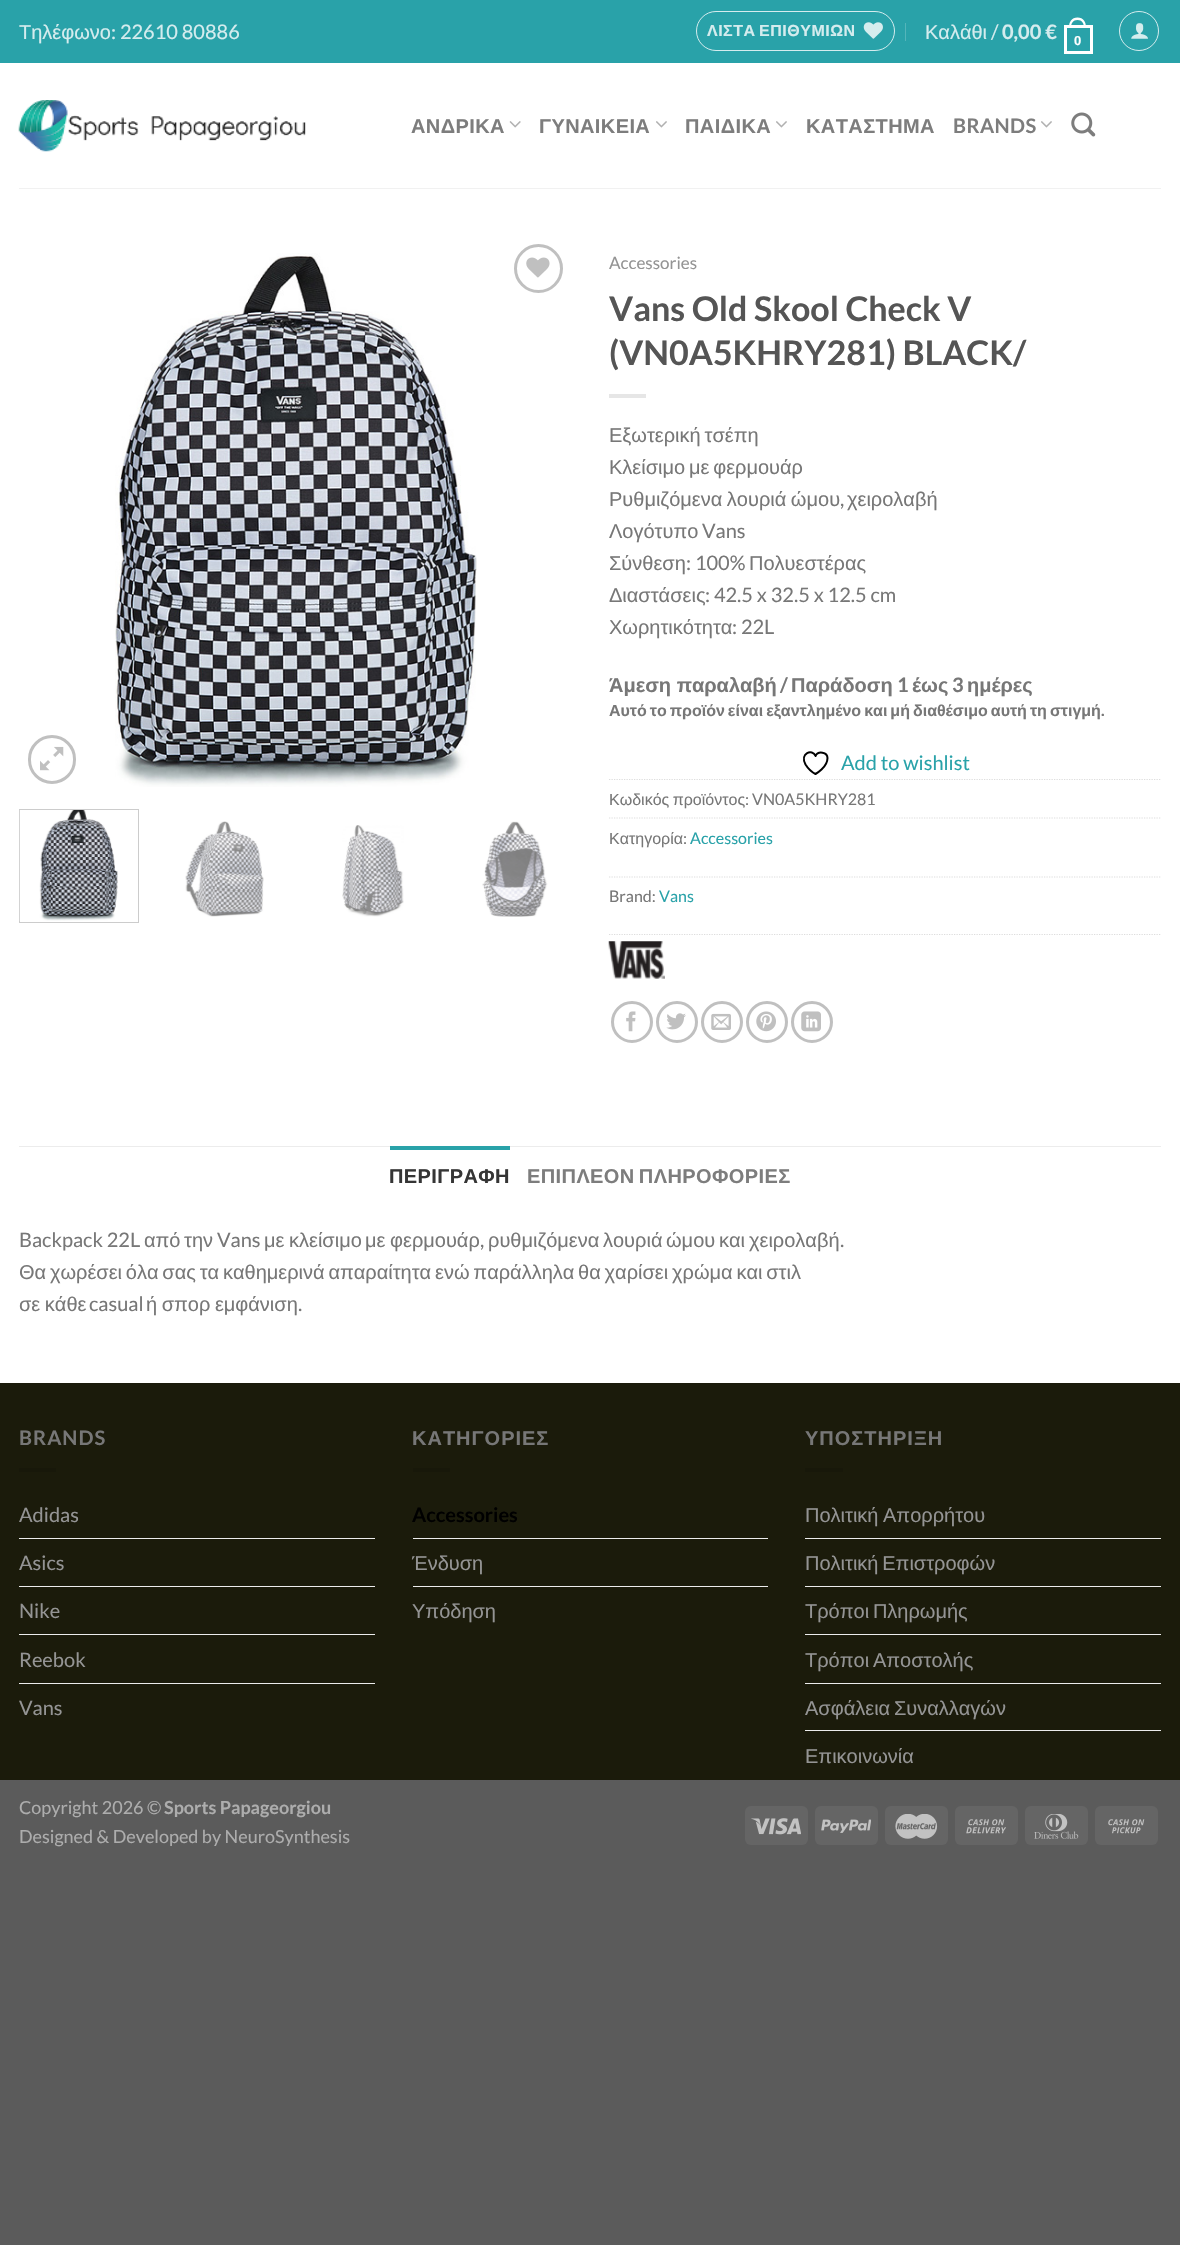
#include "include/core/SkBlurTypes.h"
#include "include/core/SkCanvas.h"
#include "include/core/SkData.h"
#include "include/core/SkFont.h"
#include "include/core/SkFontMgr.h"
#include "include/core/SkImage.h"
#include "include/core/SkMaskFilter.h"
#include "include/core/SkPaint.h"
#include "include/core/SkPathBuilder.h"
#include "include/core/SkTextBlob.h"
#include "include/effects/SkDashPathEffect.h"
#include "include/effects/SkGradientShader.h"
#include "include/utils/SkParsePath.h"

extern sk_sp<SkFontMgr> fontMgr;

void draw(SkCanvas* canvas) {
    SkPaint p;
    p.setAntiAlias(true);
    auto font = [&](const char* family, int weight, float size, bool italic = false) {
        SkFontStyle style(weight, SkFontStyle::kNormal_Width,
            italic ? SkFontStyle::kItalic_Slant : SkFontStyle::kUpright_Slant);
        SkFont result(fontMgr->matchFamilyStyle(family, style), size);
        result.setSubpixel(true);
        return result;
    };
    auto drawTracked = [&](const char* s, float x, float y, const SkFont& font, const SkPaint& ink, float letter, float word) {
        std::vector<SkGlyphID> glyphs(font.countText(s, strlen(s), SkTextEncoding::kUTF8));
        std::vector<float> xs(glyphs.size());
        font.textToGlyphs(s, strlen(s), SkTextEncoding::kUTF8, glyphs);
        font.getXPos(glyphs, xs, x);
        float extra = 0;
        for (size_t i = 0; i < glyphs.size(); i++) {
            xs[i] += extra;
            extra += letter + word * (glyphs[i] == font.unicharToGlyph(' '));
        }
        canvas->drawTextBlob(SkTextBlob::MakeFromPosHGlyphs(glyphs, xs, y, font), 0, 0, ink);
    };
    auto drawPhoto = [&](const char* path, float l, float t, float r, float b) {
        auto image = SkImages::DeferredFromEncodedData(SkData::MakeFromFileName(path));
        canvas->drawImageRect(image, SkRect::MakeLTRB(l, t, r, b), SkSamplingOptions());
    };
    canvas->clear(0xFF5B5B5B);
    p.setColor(0xFFFFFFFF);
    canvas->drawRect(SkRect::MakeLTRB(0, 63, 1180, 1383), p);
    p.setColor(0xFF29A2A9);
    canvas->drawRect(SkRect::MakeLTRB(0, 0, 1180, 63), p);
    auto font1 = font("Liberation Sans", 400, 20);
    p.setColor(0xFFD4ECEE);
    canvas->drawString("Τηλέφωνο", 19, 39, font1, p);
    auto font2 = font("Lato", 400, 20);
    canvas->drawString(": 22610 80886", 111, 39, font2, p);
    p.setStyle(SkPaint::kStroke_Style);
    p.setStrokeWidth(1);
    canvas->drawRoundRect(SkRect::MakeLTRB(696.5f, 11.5f, 894.5f, 50.5f), 19.5f, 19.5f, p);
    auto font3 = font("Liberation Sans", 700, 16);
    p.setStyle(SkPaint::kFill_Style);
    drawTracked("ΛΙΣΤΑ ΕΠΙΘΥΜΙΩΝ", 707, 36, font3, p, 0.5f, -1.4f);
    drawPhoto("media/1.png", 863, 22, 883, 39);
    p.setColor(0xFF54B5BA);
    canvas->drawRect(SkRect::MakeLTRB(905, 23, 906, 41), p);
    p.setColor(0xFFD4ECEE);
    canvas->drawString("Καλάθι", 925, 39, font1, p);
    canvas->drawString("/", 991, 39, font2, p);
    auto font4 = font("Lato", 700, 20);
    canvas->drawString("0,00 €", 1002, 39, font4, p);
    p.setStyle(SkPaint::kStroke_Style);
    p.setStrokeWidth(3);
    p.setColor(0xFFFFFFFF);
    canvas->drawRect(SkRect::MakeLTRB(1065.5f, 26.5f, 1091.5f, 52.5f), p);
    p.setStyle(SkPaint::kFill_Style);
    canvas->drawPath(SkPathBuilder(SkPathFillType::kEvenOdd).moveTo(1077.5f, 17.5f).cubicTo(1083.5f, 17.5f, 1086, 22, 1086, 27.5f).lineTo(1069, 27.5f).cubicTo(1069, 22, 1071.5f, 17.5f, 1077.5f, 17.5f).close().moveTo(1077.5f, 20).cubicTo(1082, 20, 1084, 23.5f, 1084, 27.5f).lineTo(1071, 27.5f).cubicTo(1071, 23.5f, 1073, 20, 1077.5f, 20).close().detach(), p);
    auto font5 = font("Liberation Sans", 700, 13);
    canvas->drawString("0", 1074, 45, font5, p);
    p.setStyle(SkPaint::kStroke_Style);
    p.setStrokeWidth(1);
    p.setColor(0xFFD4ECEE);
    canvas->drawCircle(1139, 31, 19.5f, p);
    drawPhoto("media/2.png", 1131, 23, 1148, 39);
    drawPhoto("media/3.png", 18, 100, 306, 152);
    auto font6 = font("Liberation Sans", 700, 20);
    p.setStyle(SkPaint::kFill_Style);
    p.setColor(0xFF7D7D7D);
    drawTracked("ΑΝΔΡΙΚΑ", 411, 133, font6, p, 0.4f, 0);
    drawPhoto("media/4.png", 509, 121, 521, 128);
    drawTracked("ΓΥΝΑΙΚΕΙΑ", 539, 133, font6, p, 0.4f, 0);
    drawPhoto("media/5.png", 656, 121, 667, 128);
    drawTracked("ΠΑΙΔΙΚΑ", 685, 133, font6, p, 0.4f, 0);
    drawPhoto("media/5.png", 776, 121, 787, 128);
    drawTracked("ΚΑΤΑΣΤΗΜΑ", 806, 133, font6, p, 0.4f, 0);
    drawTracked("BRANDS", 953, 133, font4, p, 0.4f, 0);
    drawPhoto("media/5.png", 1041, 121, 1052, 128);
    drawPhoto("media/6.png", 1071, 112, 1096, 137);
    p.setColor(0xFFF1F1F1);
    canvas->drawRect(SkRect::MakeLTRB(19, 188, 1161, 189), p);
    p.setStyle(SkPaint::kStroke_Style);
    p.setStrokeWidth(3);
    p.setColor(0xFFC0C0C0);
    canvas->drawRoundRect(SkRect::MakeLTRB(29.5f, 736.5f, 74.5f, 782.5f), 22.5f, 22.5f, p);
    drawPhoto("media/7.png", 40, 746, 64, 771);
    drawPhoto("media/8.png", 115, 253, 477, 787);
    canvas->drawCircle(538.5f, 268.5f, 23, p);
    drawPhoto("media/9.png", 526, 257, 550, 278);
    p.setStrokeWidth(1);
    p.setColor(0xFFCCCCCC);
    canvas->drawRect(SkRect::MakeLTRB(19.5f, 809.5f, 138.5f, 922.5f), p);
    drawPhoto("media/10.png", 19, 810, 118, 921);
    drawPhoto("media/11.png", 185, 821, 264, 917);
    drawPhoto("media/12.png", 342, 825, 404, 917);
    drawPhoto("media/13.png", 482, 821, 548, 917);
    auto font7 = font("Lato", 400, 17);
    p.setStyle(SkPaint::kFill_Style);
    p.setColor(0xFF949494);
    canvas->drawString("Accessories", 609, 269, font7, p);
    auto font8 = font("Lato", 700, 34);
    p.setColor(0xFF555555);
    canvas->drawString("Vans Old Skool Check V", 609, 321, font8, p);
    canvas->drawString("(VN0A5KHRY281) BLACK/", 609, 365, font8, p);
    p.setColor(0xFFE6E6E6);
    canvas->drawRect(SkRect::MakeLTRB(609, 394, 646, 398), p);
    p.setColor(0xFF777777);
    drawTracked("Εξωτερική τσέπη", 609, 442, font1, p, 0, -1.75f);
    drawTracked("Κλείσιμο με φερμουάρ", 609, 474, font1, p, 0, -1.75f);
    drawTracked("Ρυθμιζόμενα λουριά ώμου", 609, 506, font1, p, 0, -1);
    canvas->drawString(",", 840, 506, font2, p);
    canvas->drawString("χειρολαβή", 847, 506, font1, p);
    canvas->drawString("Λογότυπο", 609, 538, font1, p);
    canvas->drawString("Vans", 702, 538, font2, p);
    canvas->drawString("Σύνθεση", 609, 570, font1, p);
    canvas->drawString(": 100%", 686, 570, font2, p);
    canvas->drawString("Πολυεστέρας", 749, 570, font1, p);
    canvas->drawString("Διαστάσεις", 609, 602, font1, p);
    canvas->drawString(": 42.5 x 32.5 x 12.5 cm", 705, 602, font2, p);
    canvas->drawString("Χωρητικότητα", 609, 634, font1, p);
    canvas->drawString(": 22L", 732, 634, font2, p);
    canvas->drawString("Άμεση παραλαβή", 609, 692, font6, p);
    canvas->drawString("/", 780, 692, font4, p);
    canvas->drawString("Παράδοση", 791, 692, font6, p);
    canvas->drawString("1", 897, 692, font4, p);
    canvas->drawString("έως", 912, 692, font6, p);
    canvas->drawString("3", 952, 692, font4, p);
    canvas->drawString("ημέρες", 967, 692, font6, p);
    drawTracked("Αυτό το προϊόν είναι εξαντλημένο και μή διαθέσιμο αυτή τη στιγμή", 609, 716, font3, p, 0, -1.4f);
    auto font9 = font("Lato", 700, 16);
    canvas->drawString(".", 1101, 716, font9, p);
    p.setStyle(SkPaint::kStroke_Style);
    p.setStrokeWidth(2);
    p.setStrokeCap(SkPaint::kRound_Cap);
    p.setStrokeJoin(SkPaint::kRound_Join);
    p.setColor(0xFF000000);
    canvas->drawPath(SkPathBuilder().moveTo(827.5f, 758).cubicTo(827.5f, 752, 818, 750.5f, 815.5f, 756).cubicTo(812.5f, 748.5f, 799.5f, 753, 805.5f, 764.5f).cubicTo(808, 768.5f, 811.5f, 772, 815.5f, 774).cubicTo(815.5f, 774, 827.5f, 767.5f, 827.5f, 758).close().detach(), p);
    p.setStyle(SkPaint::kFill_Style);
    p.setColor(0xFF29A2A9);
    canvas->drawString("Add to wishlist", 841, 770, font2, p);
    p.setStyle(SkPaint::kStroke_Style);
    p.setStrokeWidth(1.2f);
    p.setStrokeCap(SkPaint::kButt_Cap);
    p.setStrokeJoin(SkPaint::kMiter_Join);
    p.setColor(0xFFDDDDDD);
    p.setPathEffect(SkDashPathEffect::Make({{1.25f, 1.25f}}, 0));
    canvas->drawPath(SkPathBuilder().moveTo(609, 779.5f).lineTo(1161, 779.5f).detach(), p);
    p.setPathEffect(nullptr);
    auto font10 = font("Liberation Sans", 400, 16);
    p.setStyle(SkPaint::kFill_Style);
    p.setColor(0xFF777777);
    drawTracked("Κωδικός προϊόντος", 609, 805, font10, p, 0, -1);
    auto font11 = font("Lato", 400, 16);
    canvas->drawString(":", 745, 805, font11, p);
    canvas->drawString("VN0A5KHRY281", 752, 805, font11, p);
    p.setStyle(SkPaint::kStroke_Style);
    p.setColor(0xFFDDDDDD);
    p.setPathEffect(SkDashPathEffect::Make({{1.25f, 1.25f}}, 0));
    canvas->drawPath(SkPathBuilder().moveTo(609, 818).lineTo(1161, 818).detach(), p);
    p.setPathEffect(nullptr);
    p.setStyle(SkPaint::kFill_Style);
    p.setColor(0xFF777777);
    canvas->drawString("Κατηγορία", 609, 844, font10, p);
    canvas->drawString(":", 683, 844, font11, p);
    p.setColor(0xFF29A2A9);
    canvas->drawString("Accessories", 690, 844, font11, p);
    p.setStyle(SkPaint::kStroke_Style);
    p.setColor(0xFFDDDDDD);
    p.setPathEffect(SkDashPathEffect::Make({{1.25f, 1.25f}}, 0));
    canvas->drawPath(SkPathBuilder().moveTo(609, 877).lineTo(1161, 877).detach(), p);
    p.setPathEffect(nullptr);
    p.setStyle(SkPaint::kFill_Style);
    p.setColor(0xFF777777);
    canvas->drawString("Brand:", 609, 902, font11, p);
    p.setColor(0xFF29A2A9);
    canvas->drawString("Vans", 659, 902, font11, p);
    p.setStyle(SkPaint::kStroke_Style);
    p.setColor(0xFFDDDDDD);
    p.setPathEffect(SkDashPathEffect::Make({{1.25f, 1.25f}}, 0));
    canvas->drawPath(SkPathBuilder().moveTo(609, 934.5f).lineTo(1161, 934.5f).detach(), p);
    p.setPathEffect(nullptr);
    drawPhoto("media/14.png", 608, 941, 665, 979);
    p.setStrokeWidth(3);
    p.setColor(0xFFC0C0C0);
    canvas->drawCircle(632, 1022, 19.5f, p);
    drawPhoto("media/15.png", 626, 1011, 636, 1032);
    canvas->drawCircle(677, 1022, 19.5f, p);
    drawPhoto("media/16.png", 666, 1013, 686, 1030);
    canvas->drawCircle(722, 1022, 19.5f, p);
    drawPhoto("media/17.png", 711, 1013, 731, 1030);
    canvas->drawCircle(767, 1022, 19.5f, p);
    drawPhoto("media/18.png", 756, 1011, 776, 1032);
    canvas->drawCircle(812, 1022, 19.5f, p);
    drawPhoto("media/19.png", 801, 1011, 821, 1032);
    p.setStyle(SkPaint::kFill_Style);
    p.setColor(0xFFECECEC);
    canvas->drawRect(SkRect::MakeLTRB(19, 1146, 1161, 1147), p);
    p.setColor(0xFF29A2A9);
    canvas->drawRect(SkRect::MakeLTRB(390, 1146, 510, 1150), p);
    p.setColor(0xFF353535);
    drawTracked("ΠΕΡΙΓΡΑΦΗ", 389, 1183, font6, p, 0.4f, 0);
    p.setColor(0xFF7D7D7D);
    drawTracked("ΕΠΙΠΛΕΟΝ ΠΛΗΡΟΦΟΡΙΕΣ", 527, 1183, font6, p, 0.4f, -1.75f);
    p.setColor(0xFF777777);
    canvas->drawString("Backpack 22L", 19, 1247, font2, p);
    canvas->drawString("από", 144, 1247, font1, p);
    canvas->drawString("την", 184, 1247, font1, p);
    canvas->drawString("Vans", 217, 1247, font2, p);
    {
        const struct { const char* s; float x, y; } items[] = {
            {"με", 264, 1247},
            {"κλείσιμο", 289, 1247},
            {"με", 365, 1247},
            {"φερμουάρ", 390, 1247},
        };
        for (auto [s, x, y] : items) {
            canvas->drawString(s, x, y, font1, p);
        }
    }
    canvas->drawString(",", 480, 1247, font2, p);
    {
        const struct { const char* s; float x, y; } items[] = {
            {"ρυθμιζόμενα", 488, 1247},
            {"λουριά", 603, 1247},
            {"ώμου", 666, 1247},
            {"και", 719, 1247},
            {"χειρολαβή", 749, 1247},
        };
        for (auto [s, x, y] : items) {
            canvas->drawString(s, x, y, font1, p);
        }
    }
    canvas->drawString(".", 840, 1247, font2, p);
    drawTracked("Θα χωρέσει όλα σας τα καθημερινά απαραίτητα ενώ παράλληλα θα χαρίσει χρώμα και στιλ", 19, 1279, font1, p, 0, -1.75f);
    drawTracked("σε κάθε", 19, 1311, font1, p, 0, -1);
    canvas->drawString("casual", 89, 1311, font2, p);
    drawTracked("ή σπορ εμφάνιση", 146, 1311, font1, p, 0, -1);
    canvas->drawString(".", 298, 1311, font2, p);
    p.setColor(0xFF1B1B0B);
    canvas->drawRect(SkRect::MakeLTRB(0, 1383, 1180, 1780), p);
    p.setColor(0xFF777777);
    drawTracked("BRANDS", 19, 1445, font4, p, 1, 0);
    p.setColor(0xFF18180A);
    canvas->drawRect(SkRect::MakeLTRB(19, 1468, 56, 1472), p);
    p.setColor(0xFF949494);
    canvas->drawString("Adidas", 19, 1522, font2, p);
    p.setColor(0xFFECECEC);
    canvas->drawRect(SkRect::MakeLTRB(19, 1538, 375, 1539), p);
    p.setColor(0xFF949494);
    canvas->drawString("Asics", 19, 1570, font2, p);
    p.setColor(0xFFECECEC);
    canvas->drawRect(SkRect::MakeLTRB(19, 1586, 375, 1587), p);
    p.setColor(0xFF949494);
    canvas->drawString("Nike", 19, 1618, font2, p);
    p.setColor(0xFFECECEC);
    canvas->drawRect(SkRect::MakeLTRB(19, 1634, 375, 1635), p);
    p.setColor(0xFF949494);
    canvas->drawString("Reebok", 19, 1667, font2, p);
    p.setColor(0xFFECECEC);
    canvas->drawRect(SkRect::MakeLTRB(19, 1683, 375, 1684), p);
    p.setColor(0xFF949494);
    canvas->drawString("Vans", 19, 1715, font2, p);
    p.setColor(0xFF777777);
    drawTracked("ΚΑΤΗΓΟΡΙΕΣ", 412, 1445, font6, p, 1, 0);
    p.setColor(0xFF18180A);
    canvas->drawRect(SkRect::MakeLTRB(413, 1468, 450, 1472), p);
    p.setColor(0xFF000000);
    canvas->drawString("Accessories", 412, 1522, font4, p);
    p.setColor(0xFFECECEC);
    canvas->drawRect(SkRect::MakeLTRB(413, 1538, 768, 1539), p);
    p.setColor(0xFF949494);
    canvas->drawString("Ένδυση", 412, 1570, font1, p);
    p.setColor(0xFFECECEC);
    canvas->drawRect(SkRect::MakeLTRB(413, 1586, 768, 1587), p);
    p.setColor(0xFF949494);
    canvas->drawString("Υπόδηση", 412, 1618, font1, p);
    p.setColor(0xFF777777);
    drawTracked("ΥΠΟΣΤΗΡΙΞΗ", 805, 1445, font6, p, 1, 0);
    p.setColor(0xFF18180A);
    canvas->drawRect(SkRect::MakeLTRB(805, 1468, 843, 1472), p);
    p.setColor(0xFF949494);
    canvas->drawString("Πολιτική", 805, 1522, font1, p);
    canvas->drawString("Απορρήτου", 883, 1522, font1, p);
    p.setColor(0xFFECECEC);
    canvas->drawRect(SkRect::MakeLTRB(805, 1538, 1161, 1539), p);
    p.setColor(0xFF949494);
    drawTracked("Πολιτική Επιστροφών", 805, 1570, font1, p, 0, -1.75f);
    p.setColor(0xFFECECEC);
    canvas->drawRect(SkRect::MakeLTRB(805, 1586, 1161, 1587), p);
    p.setColor(0xFF949494);
    drawTracked("Τρόποι Πληρωμής", 805, 1618, font1, p, 0, -1.75f);
    p.setColor(0xFFECECEC);
    canvas->drawRect(SkRect::MakeLTRB(805, 1634, 1161, 1635), p);
    p.setColor(0xFF949494);
    drawTracked("Τρόποι Αποστολής", 805, 1667, font1, p, 0, -1.75f);
    p.setColor(0xFFECECEC);
    canvas->drawRect(SkRect::MakeLTRB(805, 1683, 1161, 1684), p);
    p.setColor(0xFF949494);
    drawTracked("Ασφάλεια Συναλλαγών", 805, 1715, font1, p, 0, -1.75f);
    p.setColor(0xFFECECEC);
    canvas->drawRect(SkRect::MakeLTRB(805, 1730, 1161, 1731), p);
    p.setColor(0xFF949494);
    canvas->drawString("Επικοινωνία", 805, 1763, font1, p);
    auto font12 = font("Lato", 400, 18);
    p.setColor(0xFFADADAD);
    canvas->drawString("Copyright 2026 ©", 19, 1814, font12, p);
    auto font13 = font("Lato", 700, 18);
    canvas->drawString("Sports Papageorgiou", 164, 1814, font13, p);
    canvas->drawString("Designed & Developed by NeuroSynthesis", 19, 1843, font12, p);
    p.setColor(0xFF656565);
    canvas->drawRoundRect(SkRect::MakeLTRB(745, 1806, 808, 1845), 6, 6, p);
    drawPhoto("media/20.png", 751, 1818, 801, 1835);
    canvas->drawRoundRect(SkRect::MakeLTRB(815, 1806, 878, 1845), 6, 6, p);
    drawPhoto("media/21.png", 821, 1819, 871, 1833);
    canvas->drawRoundRect(SkRect::MakeLTRB(885, 1806, 948, 1845), 6, 6, p);
    drawPhoto("media/22.png", 895, 1814, 938, 1839);
    canvas->drawRoundRect(SkRect::MakeLTRB(955, 1806, 1018, 1845), 6, 6, p);
    drawPhoto("media/23.png", 966, 1819, 1006, 1834);
    canvas->drawRoundRect(SkRect::MakeLTRB(1025, 1806, 1088, 1845), 6, 6, p);
    drawPhoto("media/24.png", 1034, 1814, 1079, 1839);
    canvas->drawRoundRect(SkRect::MakeLTRB(1095, 1806, 1158, 1845), 6, 6, p);
    drawPhoto("media/25.png", 1108, 1819, 1145, 1834);
}
